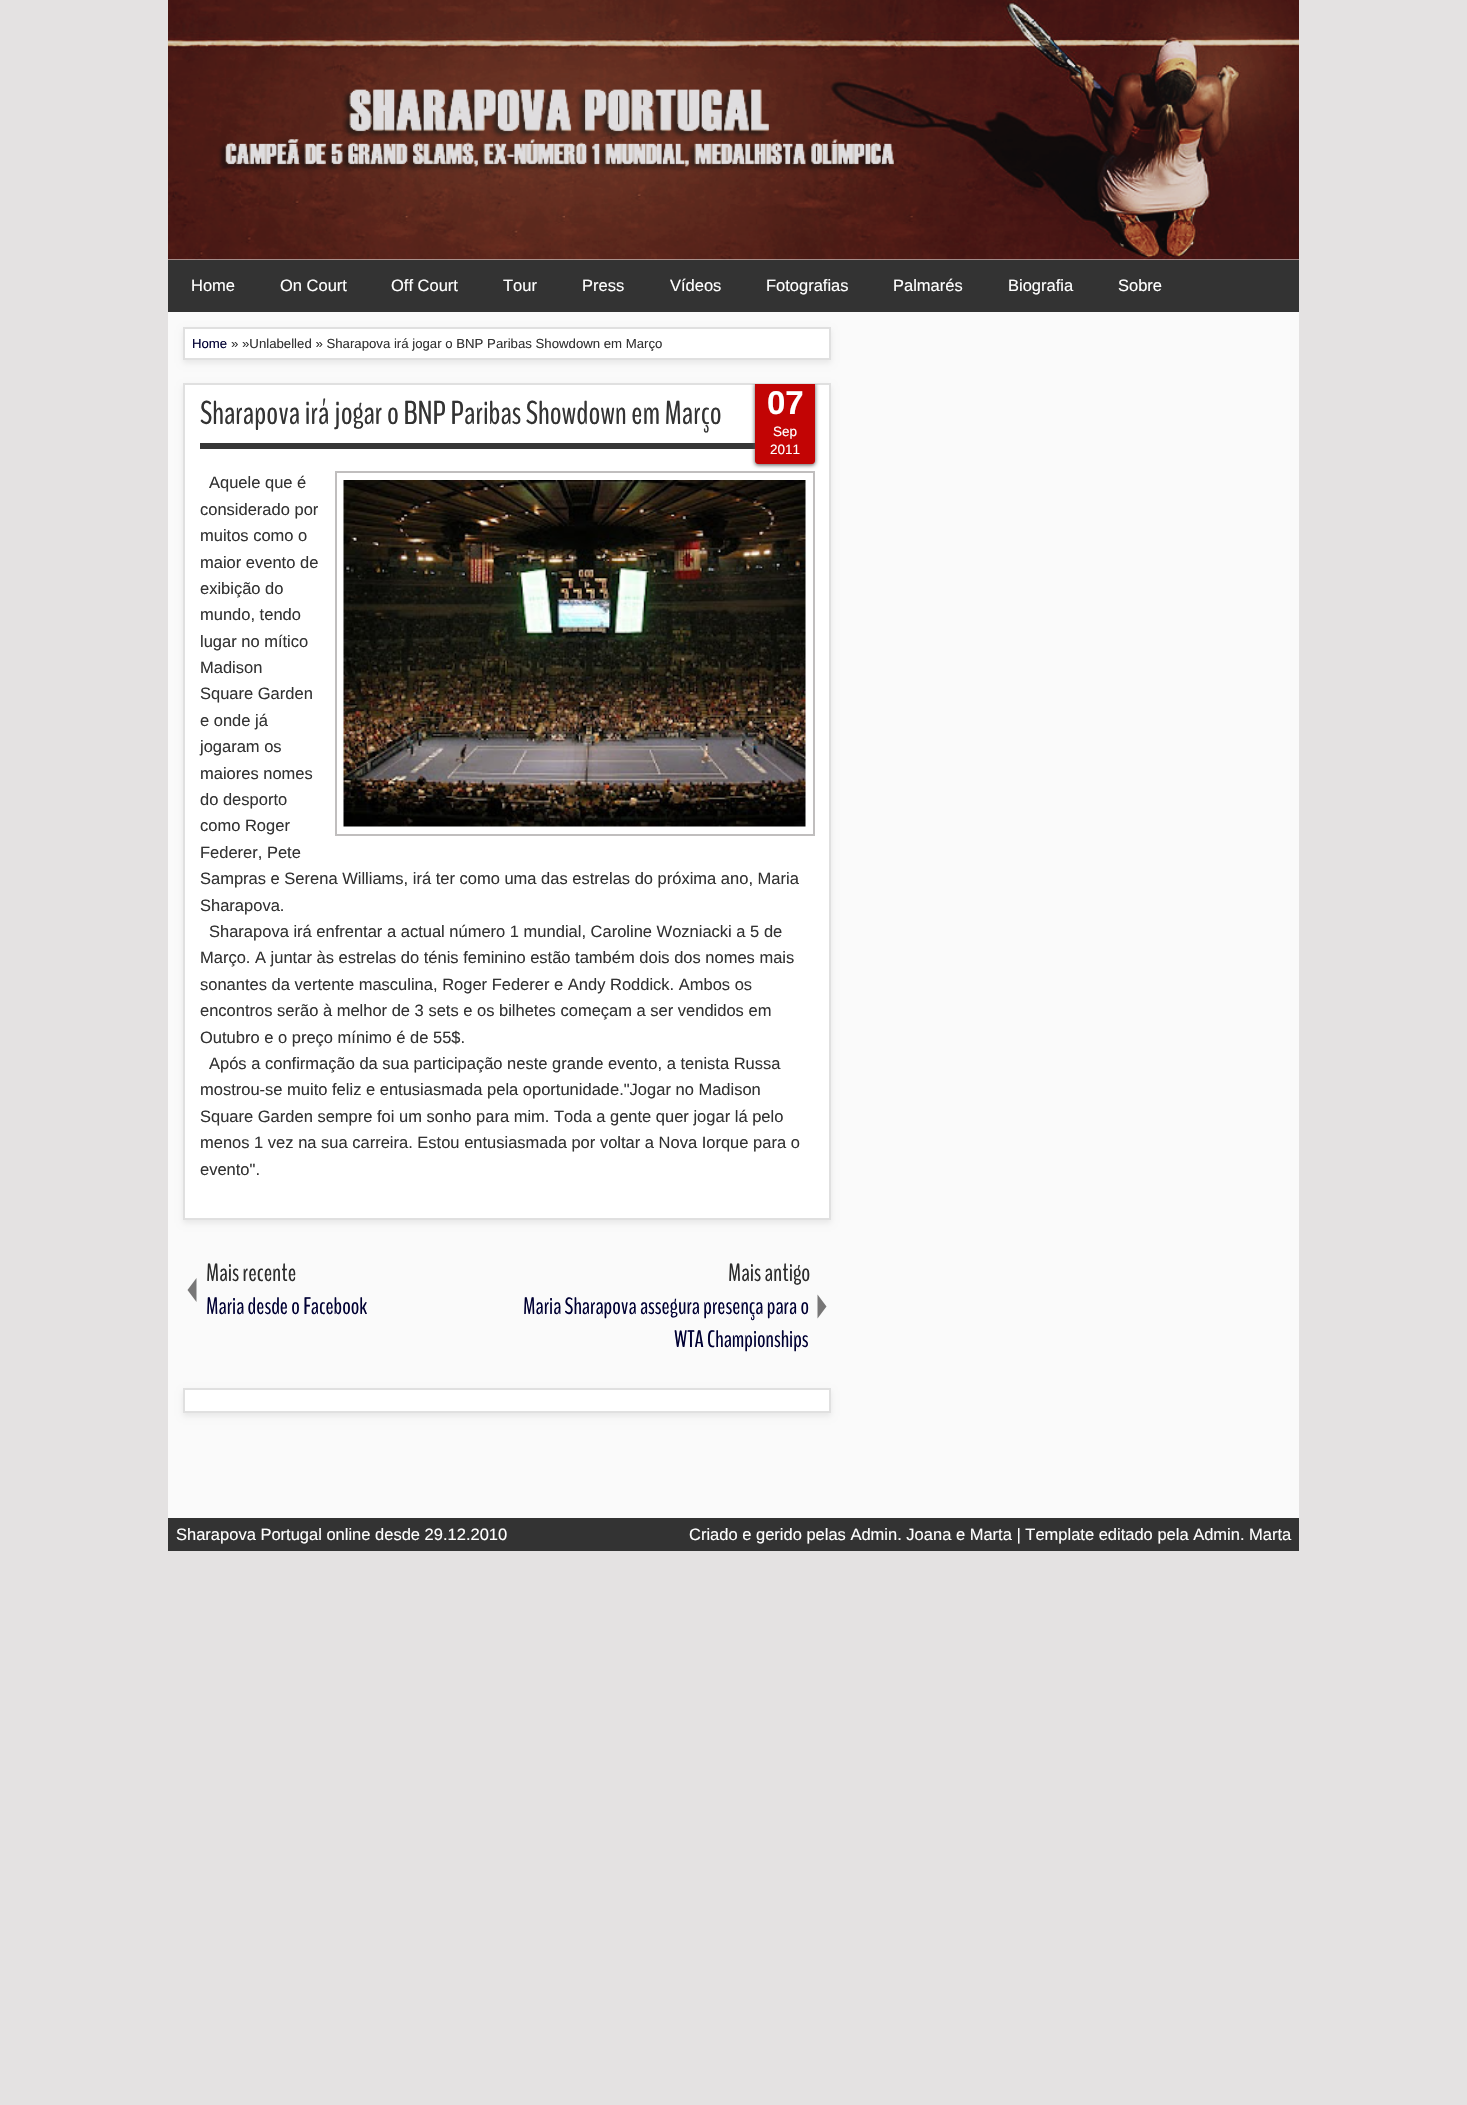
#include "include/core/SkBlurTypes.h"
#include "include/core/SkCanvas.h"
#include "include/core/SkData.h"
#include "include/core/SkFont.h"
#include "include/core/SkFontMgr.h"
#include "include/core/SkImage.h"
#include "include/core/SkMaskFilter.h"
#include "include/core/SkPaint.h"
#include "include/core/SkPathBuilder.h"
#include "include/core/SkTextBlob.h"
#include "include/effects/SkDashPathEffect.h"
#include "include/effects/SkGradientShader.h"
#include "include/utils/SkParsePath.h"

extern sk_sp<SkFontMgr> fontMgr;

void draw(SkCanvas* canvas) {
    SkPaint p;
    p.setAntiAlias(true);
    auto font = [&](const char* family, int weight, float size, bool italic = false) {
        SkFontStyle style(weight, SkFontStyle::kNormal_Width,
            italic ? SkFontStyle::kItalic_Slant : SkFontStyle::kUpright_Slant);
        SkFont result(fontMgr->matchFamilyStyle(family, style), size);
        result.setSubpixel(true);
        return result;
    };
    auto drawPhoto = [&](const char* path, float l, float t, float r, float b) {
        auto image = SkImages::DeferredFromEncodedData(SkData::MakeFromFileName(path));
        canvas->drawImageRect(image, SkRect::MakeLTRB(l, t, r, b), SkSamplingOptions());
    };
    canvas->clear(0xFFE4E2E2);
    p.setColor(0xFFFAFAFA);
    canvas->drawRect(SkRect::MakeLTRB(168, 312, 1299, 1518), p);
    p.setColor(0xFFFFFFFF);
    canvas->drawRect(SkRect::MakeLTRB(168, 259, 1299, 260), p);
    drawPhoto("media/1.png", 168, 0, 1299, 260);
    p.setColor(0xFF333333);
    canvas->drawRect(SkRect::MakeLTRB(168, 260, 1299, 312), p);
    auto font1 = font("Liberation Sans", 400, 16.5f);
    p.setColor(0xFFFFFFFF);
    {
        const struct { const char* s; float x, y; } items[] = {
            {"Home", 191, 291},
            {"On Court", 280, 291},
            {"Off Court", 391, 291},
            {"Tour", 503, 291},
            {"Press", 582, 291},
            {"Vídeos", 670, 291},
            {"Fotografias", 766, 291},
            {"Palmarés", 893, 291},
            {"Biografia", 1008, 291},
            {"Sobre", 1118, 291},
        };
        for (auto [s, x, y] : items) {
            canvas->drawString(s, x, y, font1, p);
        }
    }
    p.setColor(0xFFE7E7E7);
    p.setMaskFilter(SkMaskFilter::MakeBlur(kNormal_SkBlurStyle, 3));
    canvas->drawRect(SkRect::MakeLTRB(183, 330, 831, 363), p);
    p.setMaskFilter(nullptr);
    p.setColor(0xFFFFFFFF);
    canvas->drawRect(SkRect::MakeLTRB(184, 328, 830, 359), p);
    p.setStyle(SkPaint::kStroke_Style);
    p.setStrokeWidth(2);
    p.setColor(0xFFE0E0E0);
    canvas->drawRect(SkRect::MakeLTRB(184, 328, 830, 359), p);
    auto font2 = font("Liberation Sans", 400, 13.2f);
    p.setStyle(SkPaint::kFill_Style);
    p.setColor(0xFF000033);
    canvas->drawString("Home", 192, 348, font2, p);
    p.setColor(0xFF333333);
    canvas->drawString("» »Unlabelled » Sharapova irá jogar o BNP Paribas Showdown em Março", 231, 348, font2, p);
    p.setColor(0xFFE7E7E7);
    p.setMaskFilter(SkMaskFilter::MakeBlur(kNormal_SkBlurStyle, 3));
    canvas->drawRect(SkRect::MakeLTRB(183, 386, 831, 1223), p);
    p.setMaskFilter(nullptr);
    p.setColor(0xFFFFFFFF);
    canvas->drawRect(SkRect::MakeLTRB(184, 384, 830, 1219), p);
    p.setStyle(SkPaint::kStroke_Style);
    p.setColor(0xFFE0E0E0);
    canvas->drawRect(SkRect::MakeLTRB(184, 384, 830, 1219), p);
    p.setStyle(SkPaint::kFill_Style);
    p.setColor(0xFF363636);
    canvas->drawRect(SkRect::MakeLTRB(200, 443, 755, 449), p);
    auto font3 = font("BenchNine", 400, 33);
    p.setColor(0xFF333333);
    canvas->drawString("Sharapova irá jogar o BNP Paribas Showdown em Março", 200, 424, font3, p);
    p.setStyle(SkPaint::kStroke_Style);
    p.setColor(0xFFC0BEBE);
    canvas->drawRect(SkRect::MakeLTRB(336, 472, 814, 835), p);
    canvas->save();
    canvas->clipRect(SkRect::MakeLTRB(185, 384, 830, 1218));
    p.setStyle(SkPaint::kFill_Style);
    p.setColor(0xFF555454);
    p.setMaskFilter(SkMaskFilter::MakeBlur(kNormal_SkBlurStyle, 2));
    canvas->drawRoundRect(SkRect::MakeLTRB(755, 383, 815, 465), 3, 3, p);
    p.setMaskFilter(nullptr);
    canvas->restore();
    p.setColor(0xFFC20404);
    canvas->drawPath(SkPathBuilder().moveTo(755, 384).lineTo(815, 384).lineTo(815, 461).cubicTo(815, 462.5f, 813.5f, 464, 812, 464).lineTo(758, 464).cubicTo(756.5f, 464, 755, 462.5f, 755, 461).close().detach(), p);
    auto font4 = font("Liberation Sans", 700, 33);
    p.setColor(0xFFFFFFFF);
    canvas->drawString("07", 767, 414, font4, p);
    auto font5 = font("Liberation Sans", 400, 13.5f);
    canvas->drawString("Sep", 773, 436, font5, p);
    canvas->drawString("2011", 770, 454, font5, p);
    p.setColor(0xFF333333);
    canvas->drawString("Aquele que é", 209, 488, font1, p);
    drawPhoto("media/2.png", 343, 480, 806, 827);
    {
        const struct { const char* s; float x, y; } items[] = {
            {"considerado por", 200, 515},
            {"muitos como o", 200, 541},
            {"maior evento de", 200, 568},
            {"exibição do", 200, 594},
            {"mundo, tendo", 200, 620},
            {"lugar no mítico", 200, 647},
            {"Madison", 200, 673},
            {"Square Garden", 200, 699},
            {"e onde já", 200, 726},
            {"jogaram os", 200, 752},
            {"maiores nomes", 200, 779},
            {"do desporto", 200, 805},
            {"como Roger", 200, 831},
            {"Federer, Pete", 200, 858},
            {"Sampras e Serena Williams, irá ter como uma das estrelas do próxima ano, Maria", 200, 884},
            {"Sharapova.", 200, 911},
            {"Sharapova irá enfrentar a actual número 1 mundial, Caroline Wozniacki a 5 de", 209, 937},
            {"Março. A juntar às estrelas do ténis feminino estão também dois dos nomes mais", 200, 963},
            {"sonantes da vertente masculina, Roger Federer e Andy Roddick. Ambos os", 200, 990},
            {"encontros serão à melhor de 3 sets e os bilhetes começam a ser vendidos em", 200, 1016},
            {"Outubro e o preço mínimo é de 55$.", 200, 1043},
            {"Após a confirmação da sua participação neste grande evento, a tenista Russa", 209, 1069},
            {"mostrou-se muito feliz e entusiasmada pela oportunidade.\"Jogar no Madison", 200, 1095},
            {"Square Garden sempre foi um sonho para mim. Toda a gente quer jogar lá pelo", 200, 1122},
            {"menos 1 vez na sua carreira. Estou entusiasmada por voltar a Nova Iorque para o", 200, 1148},
            {"evento\".", 200, 1175},
        };
        for (auto [s, x, y] : items) {
            canvas->drawString(s, x, y, font1, p);
        }
    }
    auto font6 = font("BenchNine", 400, 25);
    p.setColor(0xFF2C2C2C);
    canvas->drawString("Mais recente", 206, 1281, font6, p);
    p.setColor(0xFF777676);
    canvas->drawPath(SkPathBuilder().moveTo(196.5f, 1278).lineTo(196.5f, 1302).lineTo(187.5f, 1290).close().detach(), p);
    auto font7 = font("BenchNine", 400, 23.75f);
    p.setColor(0xFF000033);
    canvas->drawString("Maria desde o Facebook", 206, 1314, font7, p);
    p.setColor(0xFF2C2C2C);
    canvas->drawString("Mais antigo", 728, 1281, font6, p);
    p.setColor(0xFF000033);
    canvas->drawString("Maria Sharapova assegura presença para o", 523, 1314, font7, p);
    canvas->drawString("WTA Championships", 674, 1347, font7, p);
    p.setColor(0xFF777676);
    canvas->drawPath(SkPathBuilder().moveTo(817.5f, 1318.5f).lineTo(817.5f, 1294.5f).lineTo(826.5f, 1306.5f).close().detach(), p);
    p.setColor(0xFFE7E7E7);
    p.setMaskFilter(SkMaskFilter::MakeBlur(kNormal_SkBlurStyle, 3));
    canvas->drawRect(SkRect::MakeLTRB(183, 1391, 831, 1416), p);
    p.setMaskFilter(nullptr);
    p.setColor(0xFFFFFFFF);
    canvas->drawRect(SkRect::MakeLTRB(184, 1389, 830, 1412), p);
    p.setStyle(SkPaint::kStroke_Style);
    p.setColor(0xFFE0E0E0);
    canvas->drawRect(SkRect::MakeLTRB(184, 1389, 830, 1412), p);
    p.setStyle(SkPaint::kFill_Style);
    p.setColor(0xFF333333);
    canvas->drawRect(SkRect::MakeLTRB(168, 1518, 1299, 1551), p);
    p.setColor(0xFFFFFFFF);
    canvas->drawString("Sharapova Portugal online desde 29.12.2010", 176, 1540, font1, p);
    canvas->drawString("Criado e gerido pelas Admin. Joana e Marta | Template editado pela Admin. Marta", 689, 1540, font1, p);
}
